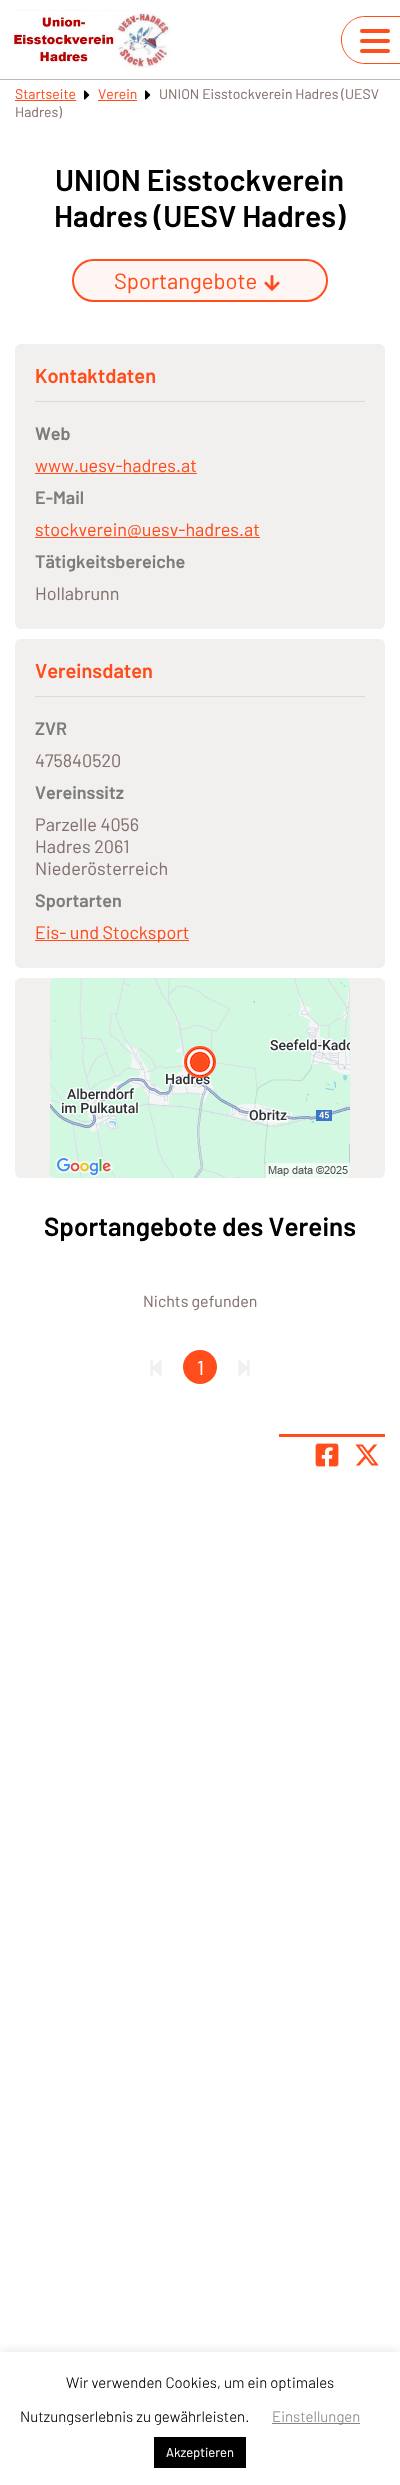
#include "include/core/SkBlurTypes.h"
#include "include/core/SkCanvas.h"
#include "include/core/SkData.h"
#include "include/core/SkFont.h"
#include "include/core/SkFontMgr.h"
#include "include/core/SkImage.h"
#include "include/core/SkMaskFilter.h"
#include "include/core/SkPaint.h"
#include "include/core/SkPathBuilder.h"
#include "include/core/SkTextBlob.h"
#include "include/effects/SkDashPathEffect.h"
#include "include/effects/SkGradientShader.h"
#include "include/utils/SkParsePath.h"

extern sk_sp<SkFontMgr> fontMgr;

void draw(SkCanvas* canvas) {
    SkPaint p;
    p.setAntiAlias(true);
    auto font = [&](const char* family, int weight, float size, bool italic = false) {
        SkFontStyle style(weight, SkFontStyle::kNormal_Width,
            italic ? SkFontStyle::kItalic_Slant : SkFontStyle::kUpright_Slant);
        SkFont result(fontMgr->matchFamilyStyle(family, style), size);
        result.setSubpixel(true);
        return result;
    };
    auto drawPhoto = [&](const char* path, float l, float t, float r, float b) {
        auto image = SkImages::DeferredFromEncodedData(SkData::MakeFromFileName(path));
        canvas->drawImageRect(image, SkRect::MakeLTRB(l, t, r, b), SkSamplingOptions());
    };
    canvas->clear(0xFFFFFFFF);
    p.setColor(0xFFBABABA);
    canvas->drawRect(SkRect::MakeLTRB(0, 79, 400, 80), p);
    drawPhoto("media/1.png", 13, 10, 171, 68);
    p.setColor(0xFFFF4D1C);
    canvas->drawPath(SkPathBuilder(SkPathFillType::kEvenOdd).moveTo(365, 16).lineTo(400, 16).lineTo(400, 64).lineTo(365, 64).cubicTo(352, 64, 341, 53, 341, 40).cubicTo(341, 27, 352, 16, 365, 16).close().moveTo(365, 17).lineTo(400, 17).lineTo(400, 63).lineTo(365, 63).cubicTo(352, 63, 342, 53, 342, 40).cubicTo(342, 27, 352, 17, 365, 17).close().detach(), p);
    canvas->drawRoundRect(SkRect::MakeLTRB(360, 39, 390, 43), 2, 2, p);
    canvas->drawRoundRect(SkRect::MakeLTRB(360, 29, 390, 33), 2, 2, p);
    canvas->drawRoundRect(SkRect::MakeLTRB(360, 49, 390, 53), 2, 2, p);
    auto font1 = font("Barlow", 400, 14);
    canvas->drawString("Startseite", 15, 99, font1, p);
    canvas->drawRect(SkRect::MakeLTRB(15, 100, 76, 101), p);
    drawPhoto("media/2.png", 84, 90, 90, 100);
    canvas->drawString("Verein", 98, 99, font1, p);
    canvas->drawRect(SkRect::MakeLTRB(98, 100, 137, 101), p);
    drawPhoto("media/2.png", 145, 90, 151, 100);
    p.setColor(0xFF83716D);
    canvas->drawString("UNION Eisstockverein Hadres (UESV", 159, 99, font1, p);
    canvas->drawString("Hadres)", 15, 117, font1, p);
    auto font2 = font("Barlow", 600, 30);
    p.setColor(0xFF000000);
    canvas->drawString("UNION Eisstockverein", 55, 191, font2, p);
    canvas->drawString("Hadres (UESV Hadres)", 54, 227, font2, p);
    p.setColor(0xFFFFF6F4);
    canvas->drawRoundRect(SkRect::MakeLTRB(73, 260, 327, 301), 20.5f, 20.5f, p);
    p.setStyle(SkPaint::kStroke_Style);
    p.setStrokeWidth(2);
    p.setColor(0xFFFF4D1C);
    canvas->drawRoundRect(SkRect::MakeLTRB(73, 260, 327, 301), 20.5f, 20.5f, p);
    auto font3 = font("Barlow", 400, 22);
    p.setStyle(SkPaint::kFill_Style);
    canvas->drawString("Sportangebote", 114, 289, font3, p);
    drawPhoto("media/3.png", 264, 275, 280, 291);
    p.setColor(0xFFF1F0EF);
    canvas->drawRoundRect(SkRect::MakeLTRB(15, 344, 385, 629), 6, 6, p);
    p.setColor(0xFFDADADA);
    canvas->drawRect(SkRect::MakeLTRB(35, 401, 365, 402), p);
    auto font4 = font("Barlow", 600, 20);
    p.setColor(0xFFFF4D1C);
    canvas->drawString("Kontaktdaten", 35, 383, font4, p);
    auto font5 = font("Barlow", 600, 18);
    p.setColor(0xFF7C7C79);
    canvas->drawString("Web", 35, 440, font5, p);
    auto font6 = font("Barlow", 400, 18);
    p.setColor(0xFFFF4D1C);
    canvas->drawString("www.uesv-hadres.at", 35, 472, font6, p);
    canvas->drawRect(SkRect::MakeLTRB(35, 473, 197, 474), p);
    p.setColor(0xFF7C7C79);
    canvas->drawString("E-Mail", 35, 504, font5, p);
    p.setColor(0xFFFF4D1C);
    canvas->drawRect(SkRect::MakeLTRB(35, 537, 260, 538), p);
    canvas->drawString("stockverein@uesv-hadres.at", 35, 536, font6, p);
    p.setColor(0xFF7C7C79);
    canvas->drawString("Tätigkeitsbereiche", 35, 568, font5, p);
    p.setColor(0xFF83716D);
    canvas->drawString("Hollabrunn", 35, 600, font6, p);
    p.setColor(0xFFF1F0EF);
    canvas->drawRoundRect(SkRect::MakeLTRB(15, 639, 385, 968), 6, 6, p);
    p.setColor(0xFFDADADA);
    canvas->drawRect(SkRect::MakeLTRB(35, 696, 365, 697), p);
    p.setColor(0xFFFF4D1C);
    canvas->drawString("Vereinsdaten", 35, 678, font4, p);
    p.setColor(0xFF7C7C79);
    canvas->drawString("ZVR", 35, 735, font5, p);
    p.setColor(0xFF83716D);
    canvas->drawString("475840520", 35, 767, font6, p);
    p.setColor(0xFF7C7C79);
    canvas->drawString("Vereinssitz", 35, 799, font5, p);
    p.setColor(0xFF83716D);
    {
        const struct { const char* s; float x, y; } items[] = {
            {"Parzelle 4056", 35, 831},
            {"Hadres 2061", 35, 853},
            {"Niederösterreich", 35, 875},
        };
        for (auto [s, x, y] : items) {
            canvas->drawString(s, x, y, font6, p);
        }
    }
    p.setColor(0xFF7C7C79);
    canvas->drawString("Sportarten", 35, 907, font5, p);
    p.setColor(0xFFFF4D1C);
    canvas->drawRect(SkRect::MakeLTRB(35, 940, 189, 941), p);
    canvas->drawString("Eis- und Stocksport", 35, 939, font6, p);
    p.setColor(0xFFF1F0EF);
    canvas->drawRoundRect(SkRect::MakeLTRB(15, 978, 385, 1178), 6, 6, p);
    drawPhoto("media/4.png", 50, 978, 350, 1178);
    auto font7 = font("Barlow", 600, 26);
    p.setColor(0xFF000000);
    canvas->drawString("Sportangebote des Vereins", 44, 1236, font7, p);
    auto font8 = font("Barlow", 400, 16);
    p.setColor(0xFF83716D);
    canvas->drawString("Nichts gefunden", 143, 1307, font8, p);
    drawPhoto("media/5.png", 150, 1360, 162, 1376);
    p.setColor(0xFFFF4D1C);
    canvas->drawCircle(200, 1367, 17, p);
    auto font9 = font("Barlow", 400, 20);
    p.setColor(0xFFFFFFFF);
    canvas->drawString("1", 197, 1375, font9, p);
    drawPhoto("media/6.png", 238, 1360, 250, 1376);
    p.setColor(0xFFFF4D1C);
    canvas->drawRect(SkRect::MakeLTRB(279, 1434, 385, 1437), p);
    drawPhoto("media/7.png", 315, 1443, 339, 1467);
    drawPhoto("media/8.png", 355, 1444, 379, 1466);
    canvas->save();
    canvas->clipRect(SkRect::MakeLTRB(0, 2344, 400, 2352));
    p.setColor(0x4DACABAB);
    p.setMaskFilter(SkMaskFilter::MakeBlur(kNormal_SkBlurStyle, 5));
    canvas->drawRect(SkRect::MakeLTRB(0, 2351, 400, 2484), p);
    p.setMaskFilter(nullptr);
    canvas->restore();
    auto font10 = font("Barlow", 300, 15);
    p.setColor(0xFF000000);
    canvas->drawString("Wir verwenden Cookies, um ein optimales", 66, 2388, font10, p);
    canvas->drawString("Nutzungserlebnis zu gewährleisten.", 20, 2422, font10, p);
    p.setColor(0xFF848484);
    canvas->drawRect(SkRect::MakeLTRB(272, 2423, 360, 2424), p);
    canvas->drawString("Einstellungen", 272, 2422, font10, p);
    p.setColor(0xFF000000);
    canvas->drawRect(SkRect::MakeLTRB(154, 2437, 246, 2468), p);
    auto font11 = font("Barlow", 400, 13);
    p.setColor(0xFFFFFFFF);
    canvas->drawString("Akzeptieren", 166, 2457, font11, p);
}
